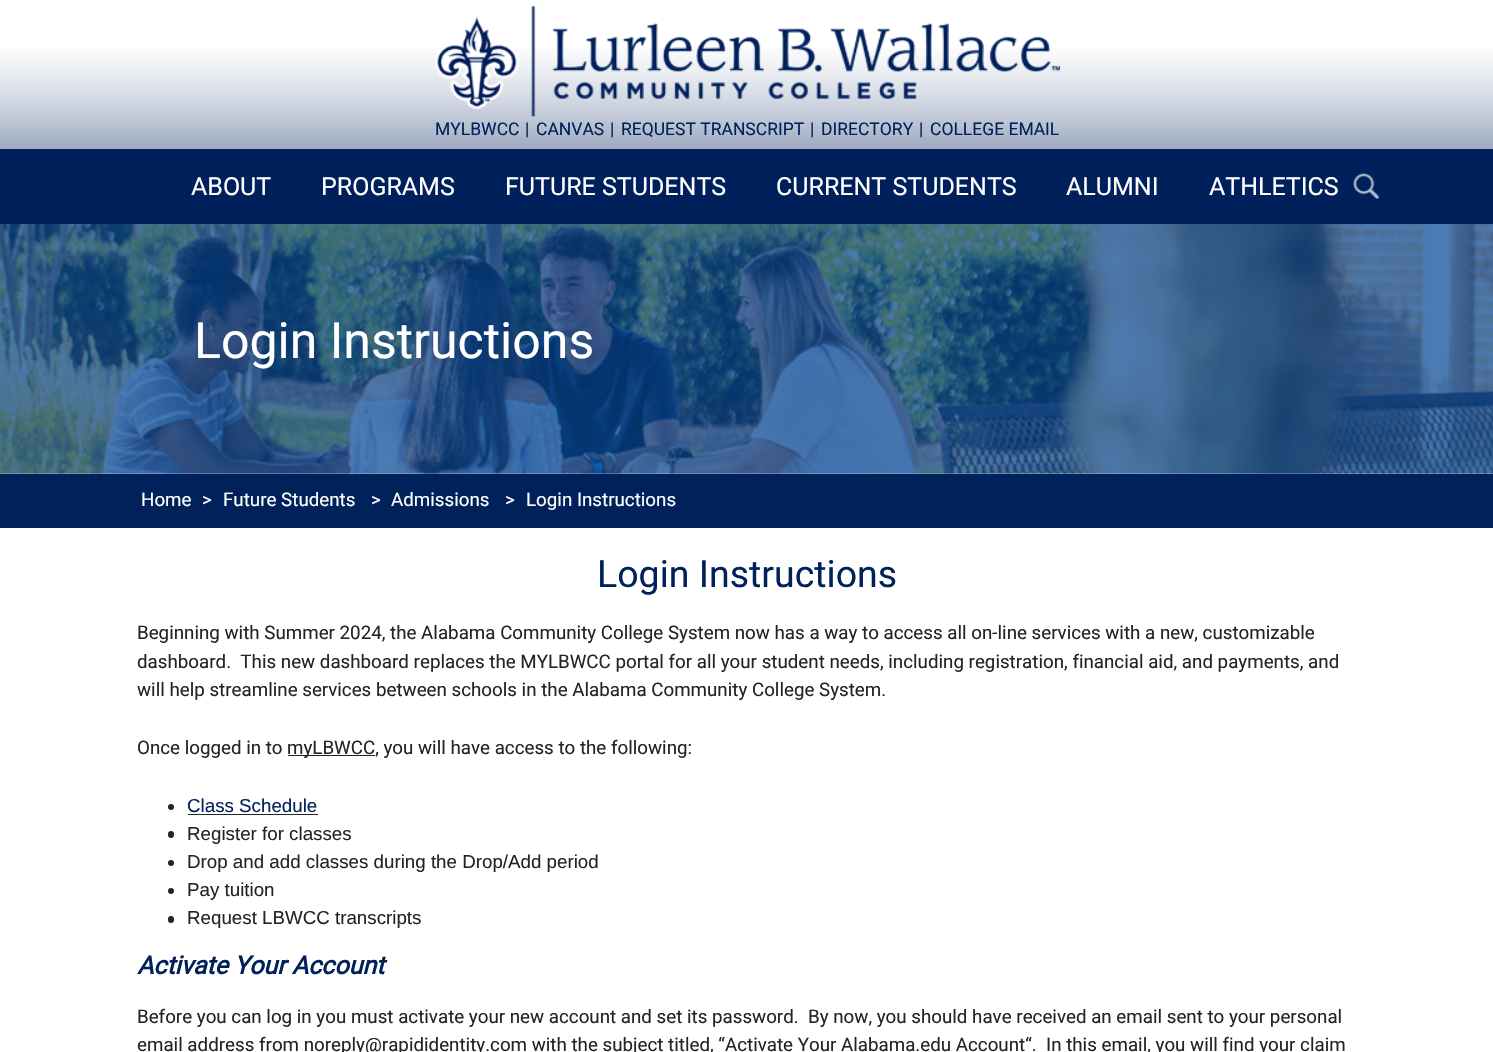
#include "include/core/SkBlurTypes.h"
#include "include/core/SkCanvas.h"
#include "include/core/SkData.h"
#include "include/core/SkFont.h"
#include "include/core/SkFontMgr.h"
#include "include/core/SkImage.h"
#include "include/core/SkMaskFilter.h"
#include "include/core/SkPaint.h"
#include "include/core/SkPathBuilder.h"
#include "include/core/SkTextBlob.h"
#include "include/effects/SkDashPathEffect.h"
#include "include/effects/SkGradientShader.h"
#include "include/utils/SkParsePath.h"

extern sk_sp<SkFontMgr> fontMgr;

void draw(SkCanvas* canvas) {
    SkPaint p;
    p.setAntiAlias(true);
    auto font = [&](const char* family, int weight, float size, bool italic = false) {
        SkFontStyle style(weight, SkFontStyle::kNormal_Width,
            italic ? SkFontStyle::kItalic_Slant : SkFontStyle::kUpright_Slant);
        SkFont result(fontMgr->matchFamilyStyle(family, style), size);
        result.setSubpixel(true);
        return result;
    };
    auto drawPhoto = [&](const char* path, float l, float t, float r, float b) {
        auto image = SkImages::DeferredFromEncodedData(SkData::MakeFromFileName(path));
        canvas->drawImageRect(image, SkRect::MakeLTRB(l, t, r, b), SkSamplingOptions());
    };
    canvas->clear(0xFFFFFFFF);
    drawPhoto("media/1.png", 0, 48, 1493, 149);
    drawPhoto("media/2.png", 435, 6, 1060, 117);
    auto font1 = font("Roboto", 400, 17.5f);
    p.setColor(0xFF002159);
    {
        const struct { const char* s; float x, y; } items[] = {
            {"MYLBWCC", 435, 135},
            {"|", 525, 135},
            {"CANVAS", 536, 135},
            {"|", 610, 135},
            {"REQUEST TRANSCRIPT", 621, 135},
            {"|", 810, 135},
            {"DIRECTORY", 821, 135},
            {"|", 919, 135},
            {"COLLEGE EMAIL", 930, 135},
        };
        for (auto [s, x, y] : items) {
            canvas->drawString(s, x, y, font1, p);
        }
    }
    p.setColor(0xFF00205B);
    canvas->drawRect(SkRect::MakeLTRB(0, 149, 1493, 224), p);
    auto font2 = font("Roboto", 400, 25);
    p.setColor(0xFFFFFFFF);
    {
        const struct { const char* s; float x, y; } items[] = {
            {"ABOUT", 191, 195},
            {"PROGRAMS", 321, 195},
            {"FUTURE STUDENTS", 505, 195},
            {"CURRENT STUDENTS", 776, 195},
            {"ALUMNI", 1066, 195},
            {"ATHLETICS", 1209, 195},
        };
        for (auto [s, x, y] : items) {
            canvas->drawString(s, x, y, font2, p);
        }
    }
    drawPhoto("media/3.png", 1353, 173, 1379, 199);
    drawPhoto("media/4.png", 0, 224, 1493, 474);
    auto font3 = font("Roboto", 400, 50);
    canvas->drawString("Login Instructions", 194, 358, font3, p);
    p.setColor(0xFF002159);
    canvas->drawRect(SkRect::MakeLTRB(0, 474, 1493, 528), p);
    auto font4 = font("Roboto", 400, 18.75f);
    p.setColor(0xFFFFFFFF);
    {
        const struct { const char* s; float x, y; } items[] = {
            {"Home", 141, 506},
            {">", 202, 506},
            {"Future Students", 223, 506},
            {">", 371, 506},
            {"Admissions", 391, 506},
            {">", 505, 506},
            {"Login Instructions", 526, 506},
        };
        for (auto [s, x, y] : items) {
            canvas->drawString(s, x, y, font4, p);
        }
    }
    auto font5 = font("Roboto", 400, 37.5f);
    p.setColor(0xFF002159);
    canvas->drawString("Login Instructions", 597, 587, font5, p);
    p.setColor(0xFF212529);
    {
        const struct { const char* s; float x, y; } items[] = {
            {"Beginning with Summer 2024, the Alabama Community College System now has a way to access all on-line services with a new, customizable", 137, 639},
            {"dashboard.  This new dashboard replaces the MYLBWCC portal for all your student needs, including registration, financial aid, and payments, and", 137, 668},
            {"will help streamline services between schools in the Alabama Community College System.", 137, 696},
            {"Once logged in to", 137, 754},
        };
        for (auto [s, x, y] : items) {
            canvas->drawString(s, x, y, font4, p);
        }
    }
    canvas->drawRect(SkRect::MakeLTRB(288, 755, 375, 756), p);
    canvas->drawString("myLBWCC, you will have access to the following:", 287, 754, font4, p);
    canvas->drawCircle(171, 807, 3, p);
    auto font6 = font("Liberation Sans", 400, 18.75f);
    p.setColor(0xFF002159);
    canvas->drawString("Class Schedule", 187, 812, font6, p);
    p.setColor(0xFF212529);
    canvas->drawRect(SkRect::MakeLTRB(188, 814, 318, 815), p);
    canvas->drawRoundRect(SkRect::MakeLTRB(168, 831, 174, 838), 3, 3, p);
    canvas->drawString("Register for classes", 187, 840, font6, p);
    canvas->drawCircle(171, 863, 3, p);
    canvas->drawString("Drop and add classes during the Drop/Add period", 187, 868, font6, p);
    canvas->drawCircle(171, 891, 3, p);
    canvas->drawString("Pay tuition", 187, 896, font6, p);
    canvas->drawRoundRect(SkRect::MakeLTRB(168, 916, 174, 923), 3, 3, p);
    canvas->drawString("Request LBWCC transcripts", 187, 924, font6, p);
    auto font7 = font("Roboto", 700, 25, true);
    p.setColor(0xFF002159);
    canvas->drawString("Activate Your Account", 137, 974, font7, p);
    p.setColor(0xFF212529);
    canvas->drawString("Before you can log in you must activate your new account and set its password.  By now, you should have received an email sent to your personal", 137, 1023, font4, p);
    canvas->drawString("email address from noreply@rapididentity.com with the subject titled, “Activate Your Alabama.edu Account“.  In this email, you will find your claim", 137, 1051, font4, p);
}
